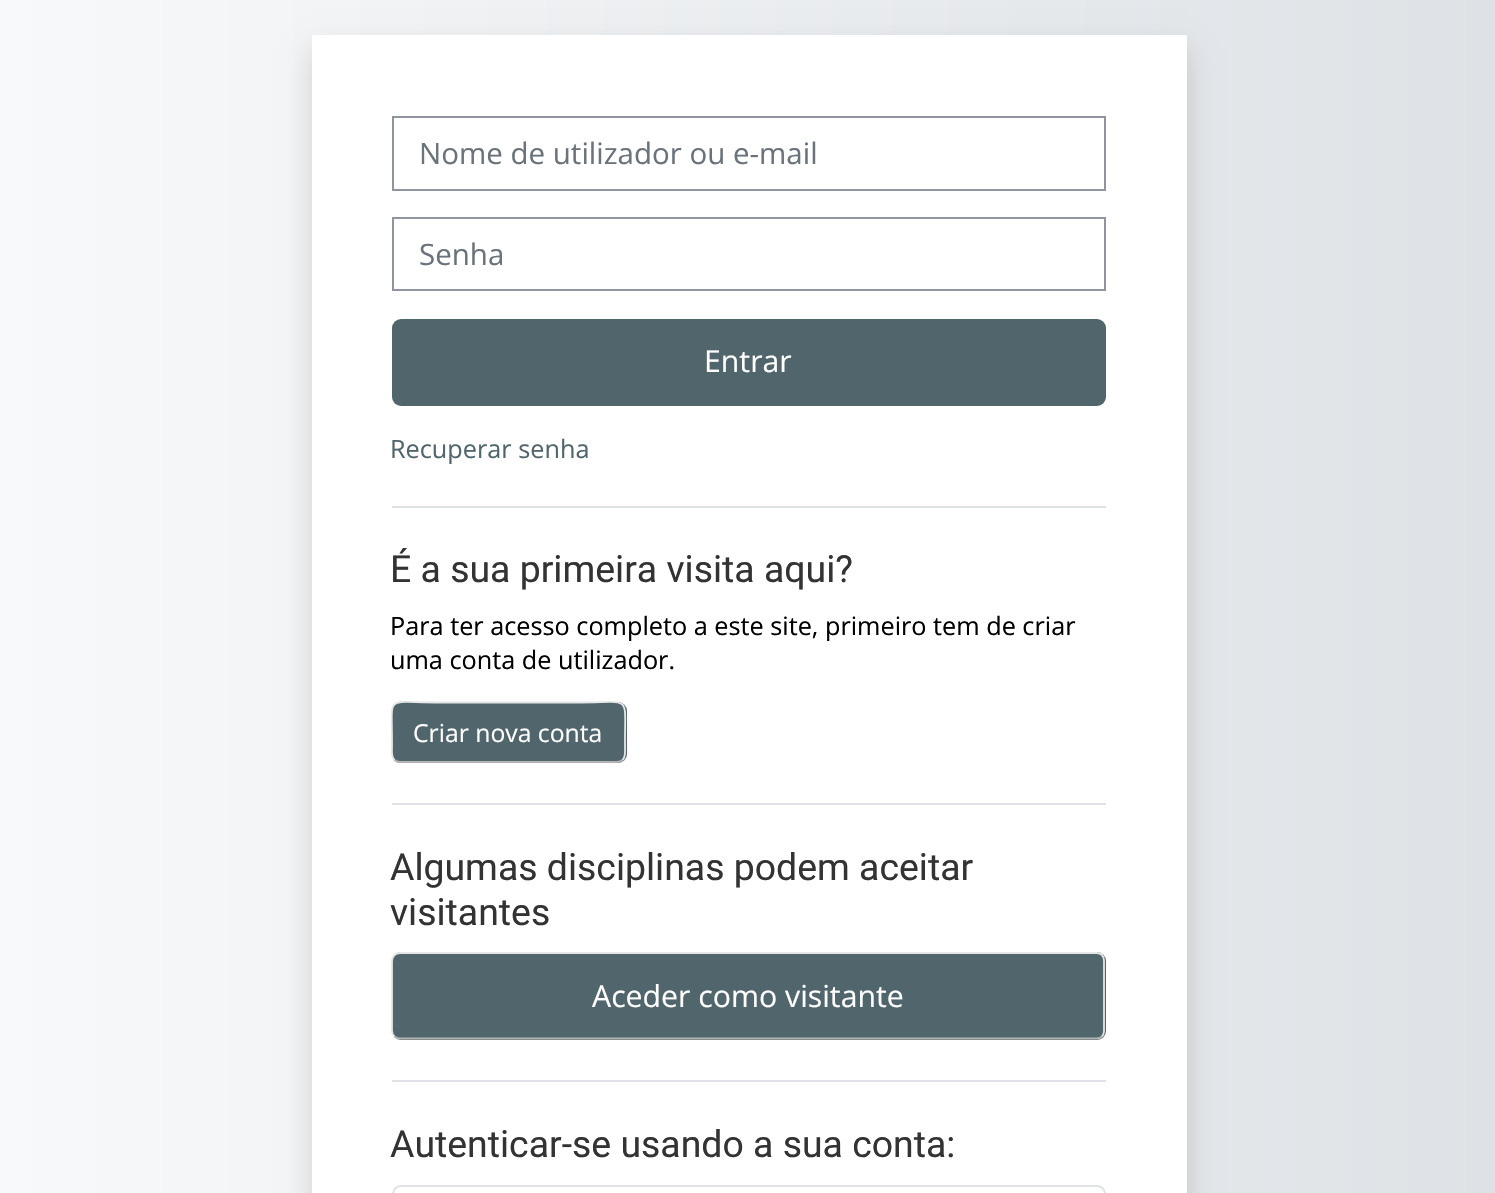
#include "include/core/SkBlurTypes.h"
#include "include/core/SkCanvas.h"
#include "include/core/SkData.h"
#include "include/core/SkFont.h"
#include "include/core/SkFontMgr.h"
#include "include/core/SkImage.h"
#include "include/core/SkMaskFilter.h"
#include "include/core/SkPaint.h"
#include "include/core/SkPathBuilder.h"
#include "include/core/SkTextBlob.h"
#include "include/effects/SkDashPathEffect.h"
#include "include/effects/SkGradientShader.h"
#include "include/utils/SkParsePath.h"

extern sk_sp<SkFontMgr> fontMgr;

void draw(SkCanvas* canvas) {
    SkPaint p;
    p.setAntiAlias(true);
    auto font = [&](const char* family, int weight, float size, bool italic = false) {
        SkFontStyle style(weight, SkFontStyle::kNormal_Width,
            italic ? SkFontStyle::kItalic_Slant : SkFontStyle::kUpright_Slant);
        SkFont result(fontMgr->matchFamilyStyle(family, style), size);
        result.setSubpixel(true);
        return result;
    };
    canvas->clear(0xFFFFFFFF);
    {
        const SkColor colors[] = {0xFFF8F9FA, 0xFFDEE2E6};
        const float stops[] = {0, 1};
        const SkPoint ends[] = {{0, 816}, {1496, 816}};
        p.setShader(SkGradientShader::MakeLinear(ends, colors, stops, 2, SkTileMode::kClamp));
        p.setAlpha(255);
    }
    canvas->drawRect(SkRect::MakeLTRB(0, 0, 1495, 1193), p);
    p.setShader(nullptr);
    p.setColor(0x26000000);
    p.setMaskFilter(SkMaskFilter::MakeBlur(kNormal_SkBlurStyle, 13.5f));
    canvas->drawRect(SkRect::MakeLTRB(312, 49, 1187, 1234), p);
    p.setMaskFilter(nullptr);
    p.setColor(0xFFFFFFFF);
    canvas->drawRect(SkRect::MakeLTRB(312, 35, 1187, 1193), p);
    p.setStyle(SkPaint::kStroke_Style);
    p.setStrokeWidth(2);
    p.setColor(0xFF8F959E);
    canvas->drawRect(SkRect::MakeLTRB(393, 117, 1105, 190), p);
    auto font1 = font("Open Sans", 400, 29.5f);
    p.setStyle(SkPaint::kFill_Style);
    p.setColor(0xFF6A737B);
    canvas->drawString("Nome de utilizador ou e-mail", 419, 164, font1, p);
    p.setStyle(SkPaint::kStroke_Style);
    p.setColor(0xFF8F959E);
    canvas->drawRect(SkRect::MakeLTRB(393, 218, 1105, 290), p);
    p.setStyle(SkPaint::kFill_Style);
    p.setColor(0xFF6A737B);
    canvas->drawString("Senha", 419, 265, font1, p);
    p.setColor(0xFF51666C);
    canvas->drawRoundRect(SkRect::MakeLTRB(392, 319, 1106, 406), 9, 9, p);
    auto font2 = font("Open Sans", 400, 30.25f);
    p.setColor(0xFFFFFFFF);
    canvas->drawString("Entrar", 704, 372, font2, p);
    auto font3 = font("Open Sans", 400, 25.25f);
    p.setColor(0xFF51666C);
    canvas->drawString("Recuperar senha", 390, 458, font3, p);
    p.setColor(0xFFDEE2E6);
    canvas->drawRect(SkRect::MakeLTRB(392, 506, 1106, 508), p);
    auto font4 = font("Roboto", 400, 37.4f);
    p.setColor(0xFF333333);
    canvas->drawString("É a sua primeira visita aqui?", 390, 582, font4, p);
    p.setColor(0xFF000000);
    canvas->drawString("Para ter acesso completo a este site, primeiro tem de criar", 390, 635, font3, p);
    canvas->drawString("uma conta de utilizador.", 390, 669, font3, p);
    p.setColor(0xFF51666C);
    canvas->drawRoundRect(SkRect::MakeLTRB(392, 702, 627, 763), 9, 9, p);
    p.setStyle(SkPaint::kStroke_Style);
    p.setStrokeWidth(1.8f);
    p.setColor(0xFFB3B3B3);
    canvas->drawPath(SkPathBuilder().moveTo(622.5f, 760).cubicTo(621, 761.5f, 619, 762, 617, 762).lineTo(400, 762).cubicTo(398, 762, 396, 761.5f, 394.5f, 760).detach(), p);
    p.setColor(0xFFE6E6E6);
    canvas->drawPath(SkPathBuilder().moveTo(394.5f, 760).cubicTo(391, 756.5f, 392, 751, 392, 747).lineTo(392, 739.5f).cubicTo(392, 694, 385.5f, 702.5f, 436, 702.5f).lineTo(580.5f, 702.5f).cubicTo(631, 702.5f, 625, 694, 625, 739.5f).lineTo(625, 747).cubicTo(625, 751, 626, 756.5f, 622.5f, 760).detach(), p);
    auto font5 = font("Open Sans", 400, 24.75f);
    p.setStyle(SkPaint::kFill_Style);
    p.setColor(0xFFFFFFFF);
    canvas->drawString("Criar nova conta", 413, 742, font5, p);
    p.setColor(0xFFDEE2E6);
    canvas->drawRect(SkRect::MakeLTRB(392, 803, 1106, 805), p);
    p.setColor(0xFF333333);
    canvas->drawString("Algumas disciplinas podem aceitar", 390, 880, font4, p);
    canvas->drawString("visitantes", 390, 925, font4, p);
    p.setColor(0xFF51666C);
    canvas->drawRoundRect(SkRect::MakeLTRB(392, 952, 1106, 1040), 9, 9, p);
    p.setStyle(SkPaint::kStroke_Style);
    p.setColor(0xFFB3B3B3);
    canvas->drawPath(SkPathBuilder().moveTo(1102, 1036.5f).cubicTo(1100.5f, 1038, 1098.5f, 1038.5f, 1096.5f, 1038.5f).lineTo(400, 1038.5f).cubicTo(398, 1038.5f, 396, 1038, 394.5f, 1036.5f).detach(), p);
    p.setColor(0xFFE6E6E6);
    canvas->drawPath(SkPathBuilder().moveTo(394.5f, 1036.5f).cubicTo(393, 1035, 392, 1033, 392, 1031).lineTo(392, 961).cubicTo(392, 958.5f, 393, 956.5f, 394.5f, 955).cubicTo(396, 953.5f, 398, 953, 400, 953).lineTo(1096.5f, 953).cubicTo(1098.5f, 953, 1100.5f, 953.5f, 1102, 955).cubicTo(1103.5f, 956.5f, 1104, 958.5f, 1104, 961).lineTo(1104, 1031).cubicTo(1104, 1033, 1103.5f, 1035, 1102, 1036.5f).detach(), p);
    p.setStyle(SkPaint::kFill_Style);
    p.setColor(0xFFFFFFFF);
    canvas->drawString("Aceder como visitante", 592, 1007, font2, p);
    p.setColor(0xFFDEE2E6);
    canvas->drawRect(SkRect::MakeLTRB(392, 1080, 1106, 1082), p);
    p.setColor(0xFF333333);
    canvas->drawString("Autenticar-se usando a sua conta:", 390, 1157, font4, p);
    p.setStyle(SkPaint::kStroke_Style);
    p.setStrokeWidth(2);
    p.setColor(0xFFDEE2E6);
    canvas->drawRoundRect(SkRect::MakeLTRB(393, 1186, 1105, 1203), 8, 8, p);
}
